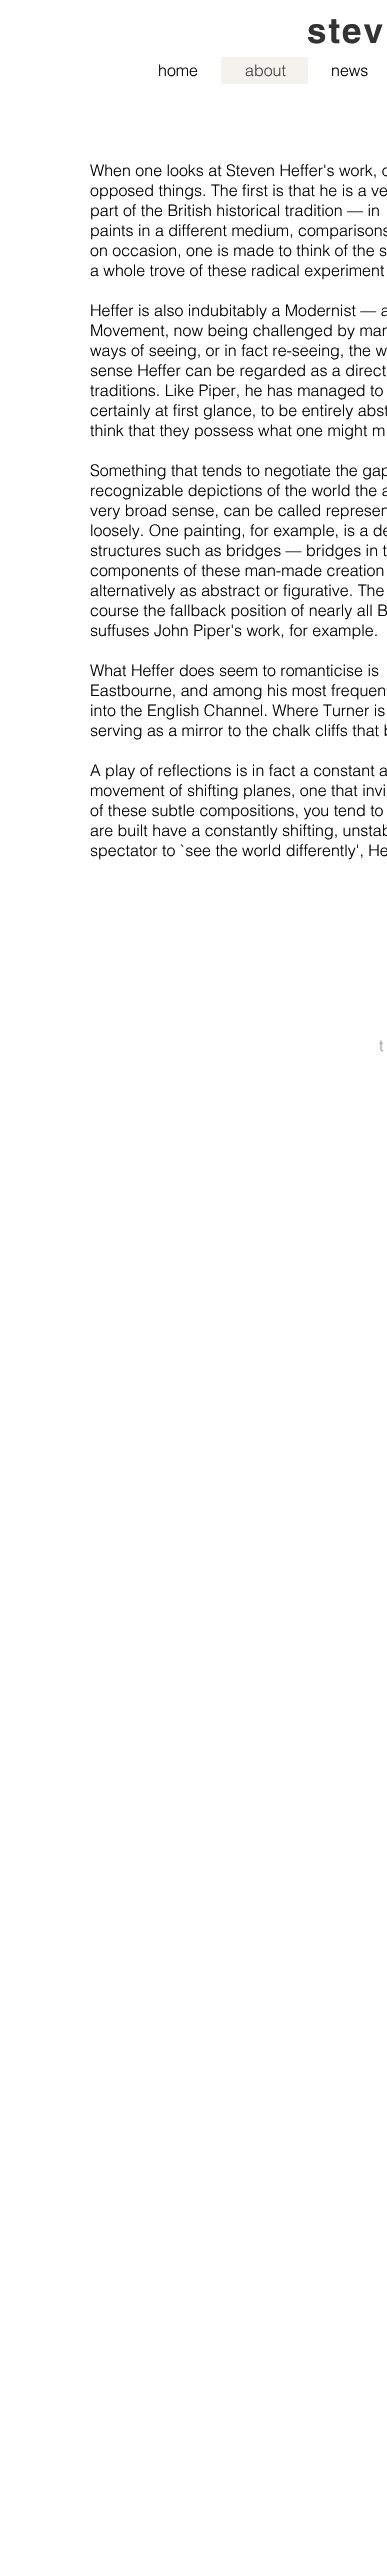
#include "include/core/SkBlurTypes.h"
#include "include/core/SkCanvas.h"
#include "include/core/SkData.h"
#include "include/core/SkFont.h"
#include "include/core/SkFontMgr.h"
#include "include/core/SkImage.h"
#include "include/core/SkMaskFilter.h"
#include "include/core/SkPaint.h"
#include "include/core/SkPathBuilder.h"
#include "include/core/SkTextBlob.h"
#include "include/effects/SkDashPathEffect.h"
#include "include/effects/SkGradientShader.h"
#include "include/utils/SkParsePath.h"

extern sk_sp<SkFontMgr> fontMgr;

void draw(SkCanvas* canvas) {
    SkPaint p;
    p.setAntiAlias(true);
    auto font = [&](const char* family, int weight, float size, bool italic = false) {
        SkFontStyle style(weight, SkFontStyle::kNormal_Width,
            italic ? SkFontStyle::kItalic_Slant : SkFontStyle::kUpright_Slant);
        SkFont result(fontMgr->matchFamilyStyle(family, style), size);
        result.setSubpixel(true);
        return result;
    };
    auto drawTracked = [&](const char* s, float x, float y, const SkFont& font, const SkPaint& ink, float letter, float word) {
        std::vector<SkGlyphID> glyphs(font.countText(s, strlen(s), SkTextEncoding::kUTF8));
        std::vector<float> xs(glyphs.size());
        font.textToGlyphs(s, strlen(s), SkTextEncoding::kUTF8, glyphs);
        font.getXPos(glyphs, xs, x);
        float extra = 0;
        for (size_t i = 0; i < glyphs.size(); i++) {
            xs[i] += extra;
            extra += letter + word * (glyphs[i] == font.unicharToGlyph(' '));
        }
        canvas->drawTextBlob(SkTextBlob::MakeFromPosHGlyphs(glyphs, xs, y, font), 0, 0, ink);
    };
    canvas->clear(0xFFFFFFFF);
    auto font1 = font("helvetica", 700, 35);
    p.setColor(0xFF333333);
    drawTracked("stev", 307, 43, font1, p, 2, 0);
    auto font2 = font("helvetica", 300, 16);
    p.setColor(0xFF000000);
    canvas->drawString("home", 158, 76, font2, p);
    p.setColor(0xFFF4F2ED);
    canvas->drawRect(SkRect::MakeLTRB(221, 57, 308, 84), p);
    p.setColor(0xFF444444);
    canvas->drawString("about", 245, 76, font2, p);
    p.setColor(0xFF000000);
    {
        const struct { const char* s; float x, y; } items[] = {
            {"news", 331, 76},
            {"When one looks at Steven Heffer's work, o", 90, 176},
            {"opposed things. The first is that he is a ve", 90, 196},
            {"part of the British historical tradition — in", 90, 216},
            {"paints in a different medium, comparisons", 90, 236},
            {"on occasion, one is made to think of the s", 90, 256},
            {"a whole trove of these radical experiment", 90, 276},
            {"Heffer is also indubitably a Modernist — a", 90, 316},
            {"Movement, now being challenged by man", 90, 336},
            {"ways of seeing, or in fact re-seeing, the w", 90, 356},
            {"sense Heffer can be regarded as a direct", 90, 376},
            {"traditions. Like Piper, he has managed to", 90, 396},
            {"certainly at first glance, to be entirely abst", 90, 416},
            {"think that they possess what one might m", 90, 436},
            {"Something that tends to negotiate the gap", 90, 476},
            {"recognizable depictions of the world the a", 90, 496},
            {"very broad sense, can be called represen", 90, 516},
            {"loosely. One painting, for example, is a de", 90, 536},
            {"structures such as bridges — bridges in t", 90, 556},
            {"components of these man-made creation", 90, 576},
            {"alternatively as abstract or figurative. The", 90, 596},
            {"course the fallback position of nearly all B", 90, 616},
            {"suffuses John Piper's work, for example.", 90, 636},
            {"What Heffer does seem to romanticise is", 90, 676},
            {"Eastbourne, and among his most frequen", 90, 696},
            {"into the English Channel. Where Turner is", 90, 716},
            {"serving as a mirror to the chalk cliffs that b", 90, 736},
            {"A play of reflections is in fact a constant a", 90, 776},
            {"movement of shifting planes, one that invi", 90, 796},
            {"of these subtle compositions, you tend to", 90, 816},
            {"are built have a constantly shifting, unstab", 90, 836},
            {"spectator to `see the world differently', He", 90, 856},
        };
        for (auto [s, x, y] : items) {
            canvas->drawString(s, x, y, font2, p);
        }
    }
    p.setColor(0xFF999999);
    canvas->drawString("t", 379, 1051, font2, p);
}
